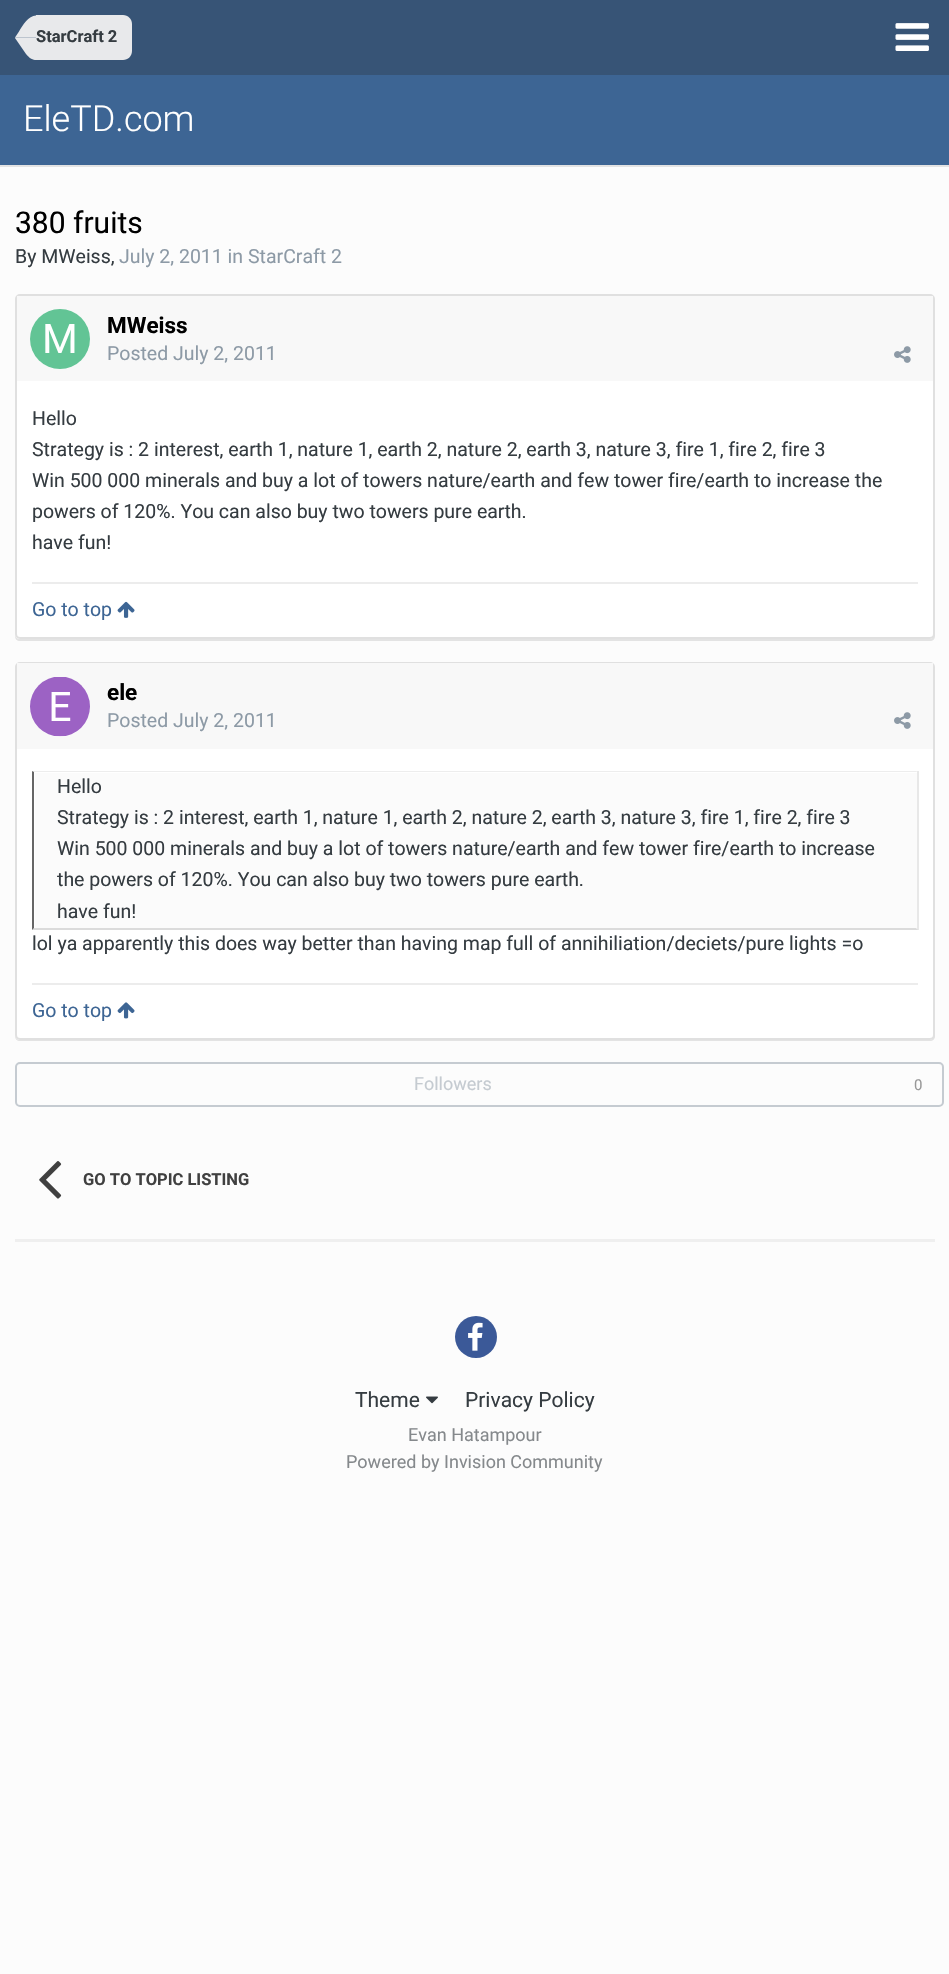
#include "include/core/SkBlurTypes.h"
#include "include/core/SkCanvas.h"
#include "include/core/SkData.h"
#include "include/core/SkFont.h"
#include "include/core/SkFontMgr.h"
#include "include/core/SkImage.h"
#include "include/core/SkMaskFilter.h"
#include "include/core/SkPaint.h"
#include "include/core/SkPathBuilder.h"
#include "include/core/SkTextBlob.h"
#include "include/effects/SkDashPathEffect.h"
#include "include/effects/SkGradientShader.h"
#include "include/utils/SkParsePath.h"

extern sk_sp<SkFontMgr> fontMgr;

void draw(SkCanvas* canvas) {
    SkPaint p;
    p.setAntiAlias(true);
    auto font = [&](const char* family, int weight, float size, bool italic = false) {
        SkFontStyle style(weight, SkFontStyle::kNormal_Width,
            italic ? SkFontStyle::kItalic_Slant : SkFontStyle::kUpright_Slant);
        SkFont result(fontMgr->matchFamilyStyle(family, style), size);
        result.setSubpixel(true);
        return result;
    };
    auto drawPhoto = [&](const char* path, float l, float t, float r, float b) {
        auto image = SkImages::DeferredFromEncodedData(SkData::MakeFromFileName(path));
        canvas->drawImageRect(image, SkRect::MakeLTRB(l, t, r, b), SkSamplingOptions());
    };
    canvas->clear(0xFFFCFCFC);
    p.setColor(0xFFE3E3E3);
    canvas->drawRect(SkRect::MakeLTRB(0, 165, 949, 167), p);
    p.setColor(0xFF375476);
    canvas->drawRect(SkRect::MakeLTRB(0, 0, 949, 75), p);
    p.setColor(0xFFE8E9EB);
    canvas->drawPath(SkPathBuilder().moveTo(36, 15).lineTo(123, 15).cubicTo(128, 15, 132, 19, 132, 24).lineTo(132, 51).cubicTo(132, 56, 128, 60, 123, 60).lineTo(36, 60).close().detach(), p);
    canvas->drawPath(SkPathBuilder().moveTo(15, 37.5f).lineTo(36, 37.5f).lineTo(36, 60).cubicTo(33, 60, 29.5f, 58.5f, 26, 54).lineTo(15, 38).close().detach(), p);
    canvas->drawPath(SkPathBuilder().moveTo(36, 15.5f).lineTo(36, 37.5f).lineTo(15, 37.5f).lineTo(19, 31.5f).cubicTo(22.5f, 25.5f, 28.5f, 15.5f, 36, 15.5f).close().detach(), p);
    auto font1 = font("Roboto", 700, 16.5f);
    p.setColor(0xFF353C41);
    canvas->drawString("StarCraft 2", 36, 42, font1, p);
    drawPhoto("media/1.png", 895, 23, 929, 51);
    p.setColor(0xFF3D6594);
    canvas->drawRect(SkRect::MakeLTRB(0, 75, 949, 165), p);
    auto font2 = font("Roboto", 300, 36);
    p.setColor(0xFFFFFFFF);
    canvas->drawString("EleTD.com", 23, 131, font2, p);
    auto font3 = font("Roboto", 400, 30);
    p.setColor(0xFF000000);
    canvas->drawString("380 fruits", 15, 233, font3, p);
    auto font4 = font("Roboto", 400, 19.5f);
    p.setColor(0xFF353C41);
    canvas->drawString("By MWeiss,", 15, 263, font4, p);
    p.setColor(0xFF8D9AA6);
    canvas->drawString("July 2, 2011 in StarCraft 2", 119, 263, font4, p);
    p.setColor(0xFFE3E3E3);
    canvas->drawPath(SkPathBuilder().moveTo(15, 634).lineTo(15, 636).cubicTo(15, 639, 17, 641, 20, 641).lineTo(930, 641).cubicTo(933, 641, 935, 639, 935, 636).lineTo(935, 301).lineTo(934, 299).lineTo(934, 634).cubicTo(934, 637, 932, 639, 930, 639).lineTo(20, 639).cubicTo(17, 639, 15, 637, 15, 634).close().detach(), p);
    p.setColor(0xFFFFFFFF);
    canvas->drawRoundRect(SkRect::MakeLTRB(16, 295, 934, 638), 4, 4, p);
    p.setStyle(SkPaint::kStroke_Style);
    p.setStrokeWidth(2);
    p.setColor(0xFFE0E0E0);
    canvas->drawRoundRect(SkRect::MakeLTRB(16, 295, 934, 638), 4, 4, p);
    p.setStyle(SkPaint::kFill_Style);
    p.setColor(0xFFF8F8F8);
    canvas->drawRect(SkRect::MakeLTRB(17, 296, 933, 381), p);
    p.setColor(0xFFFFFFFF);
    canvas->drawCircle(60, 339, 30, p);
    drawPhoto("media/2.png", 30, 309, 90, 369);
    auto font5 = font("Roboto", 700, 22.5f);
    p.setColor(0xFF000000);
    canvas->drawString("MWeiss", 107, 333, font5, p);
    p.setColor(0xFF8D9AA6);
    canvas->drawString("Posted July 2, 2011", 107, 360, font4, p);
    drawPhoto("media/3.png", 894, 346, 911, 363);
    p.setColor(0xFF353C41);
    {
        const struct { const char* s; float x, y; } items[] = {
            {"Hello", 32, 425},
            {"Strategy is : 2 interest, earth 1, nature 1, earth 2, nature 2, earth 3, nature 3, fire 1, fire 2, fire 3", 32, 456},
            {"Win 500 000 minerals and buy a lot of towers nature/earth and few tower fire/earth to increase the", 32, 487},
            {"powers of 120%. You can also buy two towers pure earth.", 32, 518},
            {"have fun!", 32, 549},
        };
        for (auto [s, x, y] : items) {
            canvas->drawString(s, x, y, font4, p);
        }
    }
    p.setColor(0xFFECECEC);
    canvas->drawRect(SkRect::MakeLTRB(32, 582, 918, 584), p);
    p.setColor(0xFF3D6594);
    canvas->drawString("Go to top", 32, 616, font4, p);
    drawPhoto("media/4.png", 117, 601, 135, 618);
    p.setColor(0xFFE3E3E3);
    canvas->drawPath(SkPathBuilder().moveTo(15, 1035).lineTo(15, 1036).cubicTo(15, 1039, 17, 1041, 20, 1041).lineTo(930, 1041).cubicTo(933, 1041, 935, 1039, 935, 1036).lineTo(935, 668).lineTo(934, 666).lineTo(934, 1035).cubicTo(934, 1037, 932, 1040, 930, 1040).lineTo(20, 1040).cubicTo(17, 1040, 15, 1037, 15, 1035).close().detach(), p);
    p.setColor(0xFFFFFFFF);
    canvas->drawRoundRect(SkRect::MakeLTRB(16, 663, 934, 1039), 4, 4, p);
    p.setStyle(SkPaint::kStroke_Style);
    p.setColor(0xFFE0E0E0);
    canvas->drawRoundRect(SkRect::MakeLTRB(16, 663, 934, 1039), 4, 4, p);
    p.setStyle(SkPaint::kFill_Style);
    p.setColor(0xFFF8F8F8);
    canvas->drawRect(SkRect::MakeLTRB(17, 663, 933, 749), p);
    p.setColor(0xFFFFFFFF);
    canvas->drawCircle(60, 707, 30, p);
    drawPhoto("media/5.png", 30, 677, 90, 737);
    p.setColor(0xFF000000);
    canvas->drawString("ele", 107, 700, font5, p);
    p.setColor(0xFF8D9AA6);
    canvas->drawString("Posted July 2, 2011", 107, 727, font4, p);
    drawPhoto("media/3.png", 894, 712, 911, 729);
    p.setColor(0xFFFBFBFB);
    canvas->drawRect(SkRect::MakeLTRB(35, 773, 917, 929), p);
    p.setColor(0xFFEDEDED);
    canvas->drawPath(SkPathBuilder().moveTo(32, 771).lineTo(918, 771).lineTo(916, 772).lineTo(34, 772).close().detach(), p);
    p.setColor(0xFFE8E8E8);
    canvas->drawRect(SkRect::MakeLTRB(917, 771, 919, 930), p);
    p.setColor(0xFFDBDBDB);
    canvas->drawPath(SkPathBuilder().moveTo(918, 930).lineTo(32, 930).lineTo(34, 928).lineTo(916, 928).close().detach(), p);
    p.setColor(0xFF666666);
    canvas->drawPath(SkPathBuilder().moveTo(32, 930).lineTo(32, 771).lineTo(34, 772).lineTo(34, 928).close().detach(), p);
    p.setColor(0xFF353C41);
    {
        const struct { const char* s; float x, y; } items[] = {
            {"Hello", 57, 793},
            {"Strategy is : 2 interest, earth 1, nature 1, earth 2, nature 2, earth 3, nature 3, fire 1, fire 2, fire 3", 57, 824},
            {"Win 500 000 minerals and buy a lot of towers nature/earth and few tower fire/earth to increase", 57, 855},
            {"the powers of 120%. You can also buy two towers pure earth.", 57, 886},
            {"have fun!", 57, 918},
            {"lol ya apparently this does way better than having map full of annihiliation/deciets/pure lights =o", 32, 950},
        };
        for (auto [s, x, y] : items) {
            canvas->drawString(s, x, y, font4, p);
        }
    }
    p.setColor(0xFFECECEC);
    canvas->drawRect(SkRect::MakeLTRB(32, 983, 918, 985), p);
    p.setColor(0xFF3D6594);
    canvas->drawString("Go to top", 32, 1017, font4, p);
    drawPhoto("media/6.png", 117, 1002, 135, 1019);
    p.setStyle(SkPaint::kStroke_Style);
    p.setColor(0xFFC5CBD1);
    canvas->drawRoundRect(SkRect::MakeLTRB(16, 1063, 943, 1106), 4, 4, p);
    auto font6 = font("Roboto", 400, 18);
    p.setStyle(SkPaint::kFill_Style);
    canvas->drawString("Followers", 414, 1090, font6, p);
    auto font7 = font("Roboto", 400, 15);
    p.setColor(0xFF989898);
    canvas->drawString("0", 914, 1090, font7, p);
    drawPhoto("media/7.png", 39, 1161, 62, 1199);
    p.setColor(0xFF404040);
    canvas->drawString("GO TO TOPIC LISTING", 83, 1185, font1, p);
    p.setColor(0xFFEFEFEF);
    canvas->drawRect(SkRect::MakeLTRB(15, 1239, 935, 1242), p);
    p.setColor(0xFF3B5998);
    canvas->drawCircle(476, 1337, 21, p);
    drawPhoto("media/8.png", 468, 1322, 483, 1351);
    auto font8 = font("Roboto", 400, 21);
    p.setColor(0xFF353C41);
    canvas->drawString("Theme", 355, 1407, font8, p);
    drawPhoto("media/9.png", 426, 1396, 438, 1404);
    canvas->drawString("Privacy Policy", 465, 1407, font8, p);
    p.setColor(0xFF85898C);
    canvas->drawString("Evan Hatampour", 408, 1441, font6, p);
    canvas->drawString("Powered by Invision Community", 346, 1468, font6, p);
}
